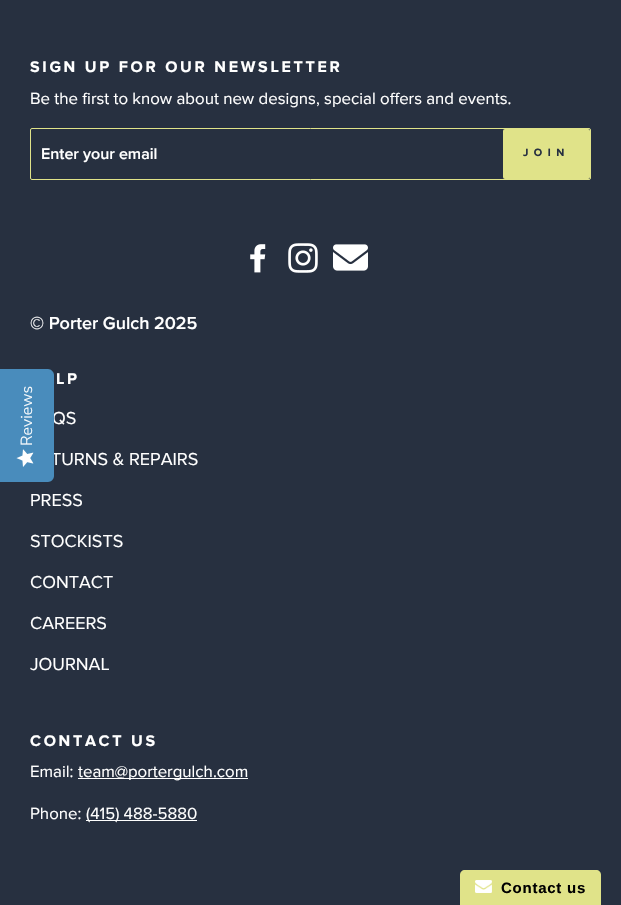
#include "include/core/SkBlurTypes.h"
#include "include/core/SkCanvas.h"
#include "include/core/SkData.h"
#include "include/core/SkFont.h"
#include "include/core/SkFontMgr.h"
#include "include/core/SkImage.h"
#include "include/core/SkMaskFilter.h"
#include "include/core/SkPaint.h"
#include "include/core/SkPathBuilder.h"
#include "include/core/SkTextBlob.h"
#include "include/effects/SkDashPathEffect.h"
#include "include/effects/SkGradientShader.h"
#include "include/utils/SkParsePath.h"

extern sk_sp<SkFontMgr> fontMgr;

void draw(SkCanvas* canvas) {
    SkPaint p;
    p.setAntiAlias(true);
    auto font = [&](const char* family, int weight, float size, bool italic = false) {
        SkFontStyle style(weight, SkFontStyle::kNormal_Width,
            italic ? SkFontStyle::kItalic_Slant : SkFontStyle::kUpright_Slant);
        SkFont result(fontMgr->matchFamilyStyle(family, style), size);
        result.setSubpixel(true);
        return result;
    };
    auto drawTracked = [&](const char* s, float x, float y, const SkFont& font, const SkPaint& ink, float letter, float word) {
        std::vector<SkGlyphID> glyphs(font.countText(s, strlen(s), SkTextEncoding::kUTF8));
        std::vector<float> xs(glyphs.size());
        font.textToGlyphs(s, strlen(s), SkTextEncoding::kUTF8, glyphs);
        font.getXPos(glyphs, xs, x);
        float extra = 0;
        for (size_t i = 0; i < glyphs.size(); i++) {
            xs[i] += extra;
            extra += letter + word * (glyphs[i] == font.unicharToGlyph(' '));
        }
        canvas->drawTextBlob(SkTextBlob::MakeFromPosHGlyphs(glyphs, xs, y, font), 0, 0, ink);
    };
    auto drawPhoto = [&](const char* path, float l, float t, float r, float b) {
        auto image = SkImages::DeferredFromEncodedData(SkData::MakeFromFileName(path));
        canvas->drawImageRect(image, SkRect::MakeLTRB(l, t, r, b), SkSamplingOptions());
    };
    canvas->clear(0xFF273040);
    auto font1 = font("Proxima Nova", 400, 18);
    p.setColor(0xFFFFFFFF);
    canvas->drawString("QS", 52, 424, font1, p);
    canvas->drawString("TURNS & REPAIRS", 51, 465, font1, p);
    p.setColor(0xFF498CBC);
    canvas->drawPath(SkPathBuilder().moveTo(0, 482).lineTo(0, 369).lineTo(48, 369).cubicTo(51, 369, 54, 372, 54, 375).lineTo(54, 476).cubicTo(54, 479, 51, 482, 48, 482).close().detach(), p);
    auto font2 = font("Nunito Sans", 300, 16);
    p.setColor(0xFFFFFFFF);
    canvas->save();
    canvas->rotate(-90, 32, 446);
    canvas->drawString("Reviews", 32, 446, font2, p);
    canvas->restore();
    drawPhoto("media/1.png", 16, 449, 34, 467);
    auto font3 = font("Proxima Nova", 700, 16);
    drawTracked("SIGN UP FOR OUR NEWSLETTER", 30, 72, font3, p, 2.7f, 0);
    auto font4 = font("Proxima Nova", 400, 16.8f);
    canvas->drawString("Be the first to know about new designs, special offers and events.", 30, 104, font4, p);
    p.setStyle(SkPaint::kStroke_Style);
    p.setStrokeWidth(1);
    p.setColor(0xFFE0E389);
    canvas->drawRoundRect(SkRect::MakeLTRB(30.5f, 128.5f, 590.5f, 179.5f), 1.5f, 1.5f, p);
    auto font5 = font("Proxima Nova", 600, 16);
    p.setStyle(SkPaint::kFill_Style);
    p.setColor(0xFFFFFFFF);
    canvas->drawString("Enter your email", 41, 159, font5, p);
    p.setColor(0xFFE0E389);
    canvas->drawRoundRect(SkRect::MakeLTRB(503, 129, 590, 179), 2, 2, p);
    auto font6 = font("Proxima Nova", 700, 11);
    p.setColor(0xFF273040);
    drawTracked("JOIN", 523, 156, font6, p, 5.5f, 0);
    drawPhoto("media/2.png", 250, 244, 266, 273);
    drawPhoto("media/3.png", 288, 243, 318, 273);
    drawPhoto("media/4.png", 333, 244, 368, 271);
    auto font7 = font("Proxima Nova", 600, 18);
    p.setColor(0xFFFFFFFF);
    canvas->drawString("© Porter Gulch 2025", 30, 329, font7, p);
    drawTracked("LP", 56, 384, font3, p, 2.7f, 0);
    {
        const struct { const char* s; float x, y; } items[] = {
            {"PRESS", 30, 506},
            {"STOCKISTS", 30, 547},
            {"CONTACT", 30, 588},
            {"CAREERS", 30, 629},
            {"JOURNAL", 30, 670},
        };
        for (auto [s, x, y] : items) {
            canvas->drawString(s, x, y, font1, p);
        }
    }
    drawTracked("CONTACT US", 30, 746, font3, p, 2.7f, 0);
    canvas->drawString("Email:", 30, 777, font4, p);
    canvas->drawRect(SkRect::MakeLTRB(78, 778, 248, 779), p);
    canvas->drawString("team@portergulch.com", 78, 777, font4, p);
    canvas->drawString("Phone:", 30, 819, font4, p);
    canvas->drawRect(SkRect::MakeLTRB(86, 820, 197, 821), p);
    canvas->drawString("(415) 488-5880", 86, 819, font4, p);
    p.setColor(0xFFE0E389);
    canvas->drawPath(SkPathBuilder().moveTo(465, 870).lineTo(596, 870).cubicTo(599, 870, 601, 872, 601, 875).lineTo(601, 905).lineTo(460, 905).lineTo(460, 875).cubicTo(460, 872, 462, 870, 465, 870).close().detach(), p);
    drawPhoto("media/5.png", 475, 880, 492, 893);
    auto font8 = font("Liberation Sans", 700, 15);
    p.setColor(0xFF000000);
    drawTracked("Contact us", 501, 893, font8, p, 0.75f, 0);
}
